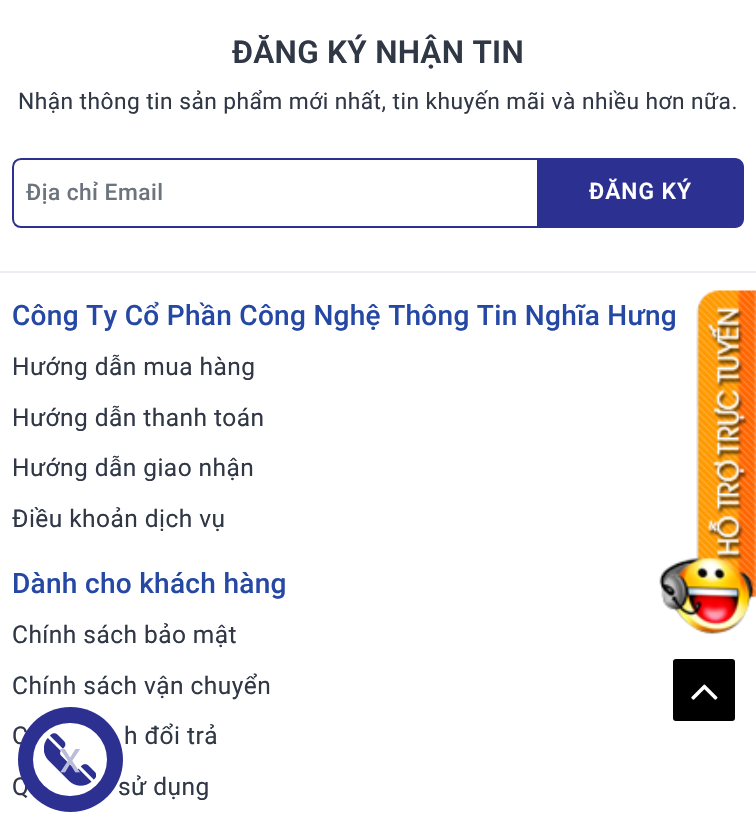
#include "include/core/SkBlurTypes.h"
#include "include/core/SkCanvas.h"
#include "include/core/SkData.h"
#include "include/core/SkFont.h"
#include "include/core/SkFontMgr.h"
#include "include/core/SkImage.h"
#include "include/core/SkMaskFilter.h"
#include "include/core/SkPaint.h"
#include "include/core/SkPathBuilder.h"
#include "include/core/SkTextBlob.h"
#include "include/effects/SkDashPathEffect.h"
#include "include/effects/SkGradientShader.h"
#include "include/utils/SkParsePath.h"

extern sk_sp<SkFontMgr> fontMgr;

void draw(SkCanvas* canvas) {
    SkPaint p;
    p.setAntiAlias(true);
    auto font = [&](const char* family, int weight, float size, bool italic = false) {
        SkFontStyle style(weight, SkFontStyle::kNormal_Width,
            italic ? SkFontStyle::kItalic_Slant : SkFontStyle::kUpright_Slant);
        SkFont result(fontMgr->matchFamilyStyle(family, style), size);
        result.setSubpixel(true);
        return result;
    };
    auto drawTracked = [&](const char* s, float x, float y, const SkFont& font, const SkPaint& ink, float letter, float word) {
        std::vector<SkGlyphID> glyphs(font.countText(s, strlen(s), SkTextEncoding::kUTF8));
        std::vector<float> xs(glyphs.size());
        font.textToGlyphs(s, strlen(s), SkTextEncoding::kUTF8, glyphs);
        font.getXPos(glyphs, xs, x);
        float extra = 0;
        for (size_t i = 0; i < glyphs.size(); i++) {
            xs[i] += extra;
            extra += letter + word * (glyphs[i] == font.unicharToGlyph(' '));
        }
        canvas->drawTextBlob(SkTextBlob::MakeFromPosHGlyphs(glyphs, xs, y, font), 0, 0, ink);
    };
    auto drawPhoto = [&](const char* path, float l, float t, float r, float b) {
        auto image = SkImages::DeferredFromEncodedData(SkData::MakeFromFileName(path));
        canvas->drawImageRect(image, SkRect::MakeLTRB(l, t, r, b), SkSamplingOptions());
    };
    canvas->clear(0xFFFFFFFF);
    p.setColor(0xFFEAEDF1);
    canvas->drawRect(SkRect::MakeLTRB(0, 271, 756, 273), p);
    auto font1 = font("Roboto", 600, 31.5f);
    p.setColor(0xFF303846);
    drawTracked("ĐĂNG KÝ NHẬN TIN", 232, 63, font1, p, 0.3f, 0);
    auto font2 = font("Roboto", 400, 22.75f);
    drawTracked("Nhận thông tin sản phẩm mới nhất, tin khuyến mãi và nhiều hơn nữa.", 18, 109, font2, p, 0.45f, 0);
    p.setStyle(SkPaint::kStroke_Style);
    p.setStrokeWidth(2);
    p.setColor(0xFF2C3091);
    canvas->drawPath(SkPathBuilder().moveTo(21, 159).lineTo(538, 159).lineTo(538, 227).lineTo(21, 227).cubicTo(16.5f, 227, 13, 223.5f, 13, 219).lineTo(13, 167).cubicTo(13, 162.5f, 16.5f, 159, 21, 159).close().detach(), p);
    auto font3 = font("Roboto", 500, 22.75f);
    p.setStyle(SkPaint::kFill_Style);
    p.setColor(0xFF6C757D);
    drawTracked("Địa chỉ Email", 26, 200, font3, p, 0.45f, 0);
    p.setColor(0xFF2C3091);
    canvas->drawPath(SkPathBuilder().moveTo(537, 158).lineTo(735, 158).cubicTo(740, 158, 744, 162, 744, 167).lineTo(744, 219).cubicTo(744, 224, 740, 228, 735, 228).lineTo(537, 228).close().detach(), p);
    auto font4 = font("Roboto", 600, 22.75f);
    p.setColor(0xFFFFFFFF);
    drawTracked("ĐĂNG KÝ", 589, 199, font4, p, 1, 0);
    auto font5 = font("Roboto", 500, 28);
    p.setColor(0xFF2548A5);
    drawTracked("Công Ty Cổ Phần Công Nghệ Thông Tin Nghĩa Hưng", 12, 325, font5, p, 0.3f, 0);
    auto font6 = font("Roboto", 400, 24.5f);
    p.setColor(0xFF303846);
    {
        const struct { const char* s; float x, y; } items[] = {
            {"Hướng dẫn mua hàng", 12, 375},
            {"Hướng dẫn thanh toán", 12, 426},
            {"Hướng dẫn giao nhận", 12, 476},
            {"Điều khoản dịch vụ", 12, 527},
        };
        for (auto [s, x, y] : items) {
            drawTracked(s, x, y, font6, p, 0.45f, 0);
        }
    }
    p.setColor(0xFF2548A5);
    drawTracked("Dành cho khách hàng", 12, 593, font5, p, 0.3f, 0);
    p.setColor(0xFF303846);
    {
        const struct { const char* s; float x, y; } items[] = {
            {"Chính sách bảo mật", 12, 643},
            {"Chính sách vận chuyển", 12, 694},
            {"C", 12, 744},
            {"h đổi trả", 124, 744},
            {"Q", 12, 795},
            {"sử dụng", 118, 795},
        };
        for (auto [s, x, y] : items) {
            drawTracked(s, x, y, font6, p, 0.45f, 0);
        }
    }
    p.setColor(0xFF000000);
    canvas->drawRoundRect(SkRect::MakeLTRB(671, 657, 737, 723), 5, 5, p);
    p.setStyle(SkPaint::kStroke_Style);
    p.setStrokeWidth(4);
    p.setColor(0xFFFFFFFF);
    canvas->drawRoundRect(SkRect::MakeLTRB(671, 657, 737, 723), 5, 5, p);
    drawPhoto("media/1.png", 691, 684, 718, 700);
    drawPhoto("media/2.png", 659, 290, 756, 634);
    p.setStyle(SkPaint::kFill_Style);
    p.setColor(0xFF2C3091);
    canvas->drawCircle(70.5f, 759.5f, 52.5f, p);
    p.setColor(0xFFFFFFFF);
    canvas->drawRoundRect(SkRect::MakeLTRB(33, 723, 107, 796), 36.5f, 36.5f, p);
    drawPhoto("media/3.png", 44, 733, 96, 786);
    auto font7 = font("Roboto", 400, 44);
    p.setColor(0xFFBBBCDB);
    canvas->save();
    canvas->rotate(180, 81, 749);
    drawTracked("x", 81, 749, font7, p, 0.45f, 0);
    canvas->restore();
}
